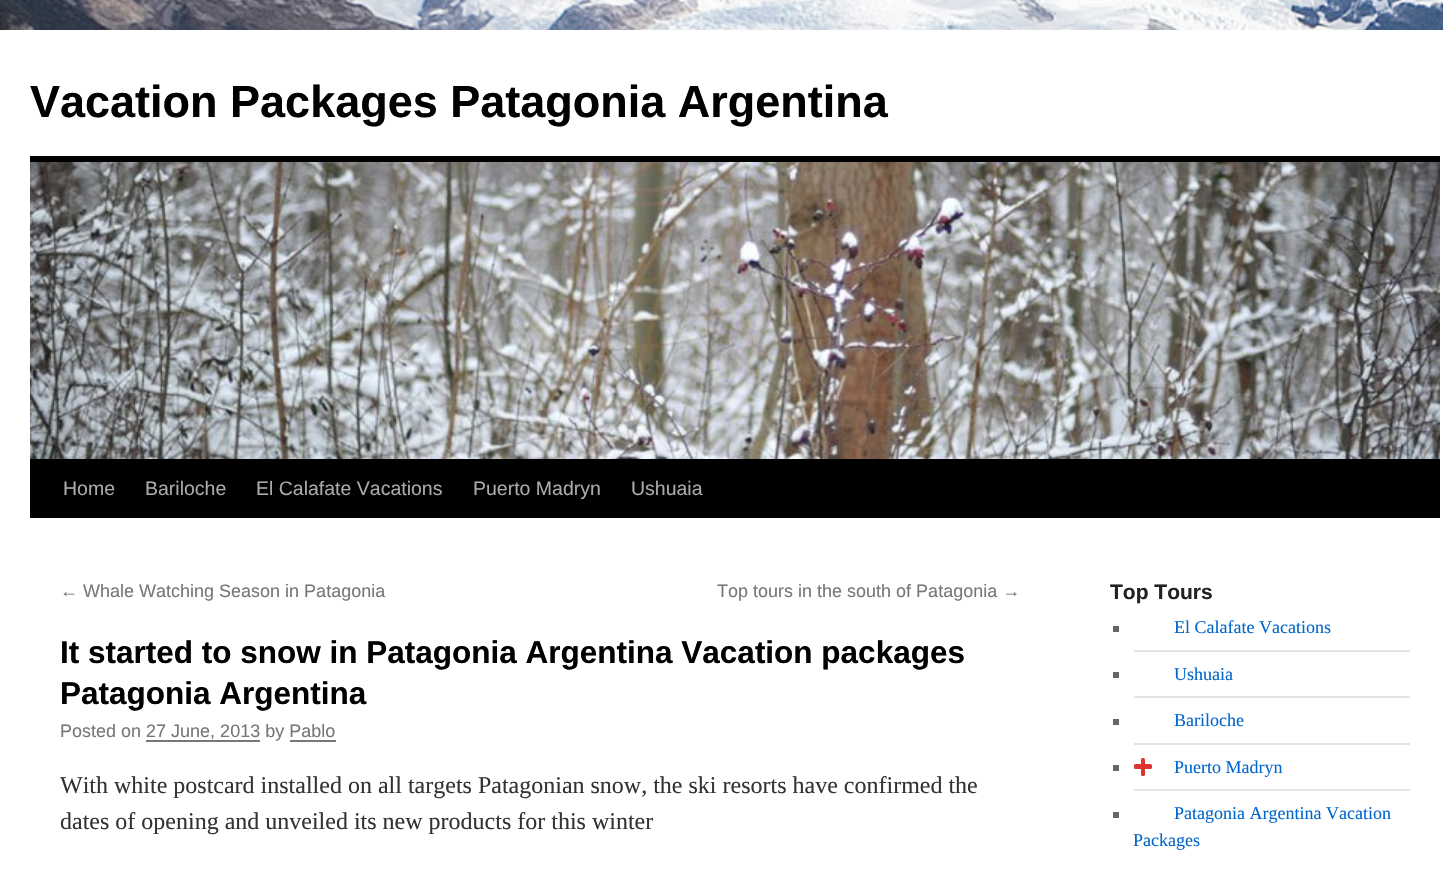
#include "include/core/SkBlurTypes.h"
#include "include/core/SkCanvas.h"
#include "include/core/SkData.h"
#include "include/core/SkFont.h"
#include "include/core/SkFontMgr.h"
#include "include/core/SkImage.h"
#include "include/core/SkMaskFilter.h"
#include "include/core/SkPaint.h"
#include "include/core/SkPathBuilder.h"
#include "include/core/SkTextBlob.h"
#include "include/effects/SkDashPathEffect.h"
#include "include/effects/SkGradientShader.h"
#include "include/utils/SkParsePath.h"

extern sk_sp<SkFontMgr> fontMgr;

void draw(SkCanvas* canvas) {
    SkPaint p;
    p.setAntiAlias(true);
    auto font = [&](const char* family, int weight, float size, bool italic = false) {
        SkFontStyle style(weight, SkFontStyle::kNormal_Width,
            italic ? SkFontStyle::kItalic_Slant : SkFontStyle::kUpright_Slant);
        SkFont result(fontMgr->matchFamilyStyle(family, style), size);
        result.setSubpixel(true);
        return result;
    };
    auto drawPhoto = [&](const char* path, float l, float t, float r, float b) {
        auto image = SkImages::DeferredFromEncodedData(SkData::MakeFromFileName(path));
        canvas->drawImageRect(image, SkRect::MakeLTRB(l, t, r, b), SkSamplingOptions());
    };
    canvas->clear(0xFFFFFFFF);
    drawPhoto("media/1.png", 0, 0, 1443, 30);
    auto font1 = font("Liberation Sans", 700, 45);
    p.setColor(0xFF000000);
    canvas->drawString("Vacation Packages Patagonia Argentina", 30, 117, font1, p);
    canvas->drawRect(SkRect::MakeLTRB(30, 156, 1440, 162), p);
    canvas->drawRect(SkRect::MakeLTRB(30, 459, 1440, 518), p);
    drawPhoto("media/2.png", 30, 162, 1440, 459);
    auto font2 = font("Liberation Sans", 400, 19.5f);
    p.setColor(0xFFAAAAAA);
    {
        const struct { const char* s; float x, y; } items[] = {
            {"Home", 63, 495},
            {"Bariloche", 145, 495},
            {"El Calafate Vacations", 256, 495},
            {"Puerto Madryn", 473, 495},
            {"Ushuaia", 631, 495},
        };
        for (auto [s, x, y] : items) {
            canvas->drawString(s, x, y, font2, p);
        }
    }
    auto font3 = font("Liberation Sans", 400, 18);
    p.setColor(0xFF777777);
    canvas->drawString("← Whale Watching Season in Patagonia", 60, 597, font3, p);
    canvas->drawString("Top tours in the south of Patagonia →", 717, 597, font3, p);
    auto font4 = font("Liberation Sans", 700, 31.5f);
    p.setColor(0xFF000000);
    canvas->drawString("It started to snow in Patagonia Argentina Vacation packages", 60, 663, font4, p);
    canvas->drawString("Patagonia Argentina", 60, 704, font4, p);
    p.setColor(0xFF777777);
    canvas->drawString("Posted on 27 June, 2013 by Pablo", 60, 737, font3, p);
    canvas->drawRect(SkRect::MakeLTRB(146, 740, 260, 742), p);
    canvas->drawRect(SkRect::MakeLTRB(290, 740, 336, 742), p);
    auto font5 = font("Liberation Serif", 400, 24);
    p.setColor(0xFF333333);
    canvas->drawString("With white postcard installed on all targets Patagonian snow, the ski resorts have confirmed the", 60, 793, font5, p);
    canvas->drawString("dates of opening and unveiled its new products for this winter", 60, 829, font5, p);
    auto font6 = font("Liberation Sans", 700, 21);
    p.setColor(0xFF222222);
    canvas->drawString("Top Tours", 1110, 599, font6, p);
    p.setColor(0xFFE4E4E4);
    canvas->drawRect(SkRect::MakeLTRB(1134, 650, 1410, 652), p);
    p.setColor(0xFF666666);
    canvas->drawRect(SkRect::MakeLTRB(1113, 626, 1119, 632), p);
    auto font7 = font("Liberation Serif", 400, 18);
    p.setColor(0xFF0066CC);
    canvas->drawString("El Calafate Vacations", 1174, 633, font7, p);
    p.setColor(0xFFE4E4E4);
    canvas->drawRect(SkRect::MakeLTRB(1134, 696, 1410, 698), p);
    p.setColor(0xFF666666);
    canvas->drawRect(SkRect::MakeLTRB(1113, 672, 1119, 678), p);
    p.setColor(0xFF0066CC);
    canvas->drawString("Ushuaia", 1174, 680, font7, p);
    p.setColor(0xFFE4E4E4);
    canvas->drawRect(SkRect::MakeLTRB(1134, 743, 1410, 745), p);
    p.setColor(0xFF666666);
    canvas->drawRect(SkRect::MakeLTRB(1113, 719, 1119, 725), p);
    p.setColor(0xFF0066CC);
    canvas->drawString("Bariloche", 1174, 726, font7, p);
    p.setColor(0xFFE4E4E4);
    canvas->drawRect(SkRect::MakeLTRB(1134, 789, 1410, 791), p);
    p.setColor(0xFF666666);
    canvas->drawRect(SkRect::MakeLTRB(1113, 765, 1119, 771), p);
    p.setColor(0xFFDD3333);
    canvas->drawRoundRect(SkRect::MakeLTRB(1134, 764, 1152, 769), 1.5f, 1.5f, p);
    canvas->drawRoundRect(SkRect::MakeLTRB(1141, 758, 1145, 776), 1.5f, 1.5f, p);
    p.setColor(0xFF0066CC);
    canvas->drawString("Puerto Madryn", 1174, 773, font7, p);
    p.setColor(0xFF666666);
    canvas->drawRect(SkRect::MakeLTRB(1113, 812, 1119, 818), p);
    p.setColor(0xFF0066CC);
    canvas->drawString("Patagonia Argentina Vacation", 1174, 819, font7, p);
    canvas->drawString("Packages", 1133, 846, font7, p);
}
